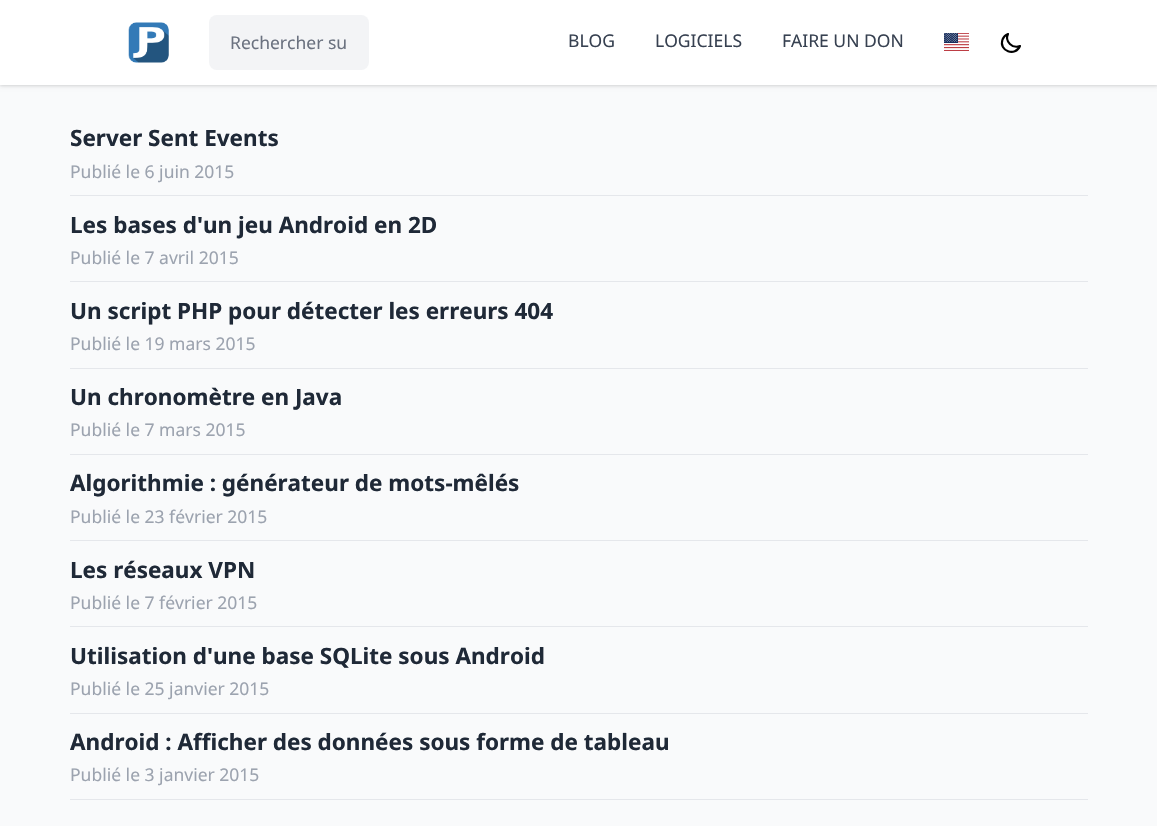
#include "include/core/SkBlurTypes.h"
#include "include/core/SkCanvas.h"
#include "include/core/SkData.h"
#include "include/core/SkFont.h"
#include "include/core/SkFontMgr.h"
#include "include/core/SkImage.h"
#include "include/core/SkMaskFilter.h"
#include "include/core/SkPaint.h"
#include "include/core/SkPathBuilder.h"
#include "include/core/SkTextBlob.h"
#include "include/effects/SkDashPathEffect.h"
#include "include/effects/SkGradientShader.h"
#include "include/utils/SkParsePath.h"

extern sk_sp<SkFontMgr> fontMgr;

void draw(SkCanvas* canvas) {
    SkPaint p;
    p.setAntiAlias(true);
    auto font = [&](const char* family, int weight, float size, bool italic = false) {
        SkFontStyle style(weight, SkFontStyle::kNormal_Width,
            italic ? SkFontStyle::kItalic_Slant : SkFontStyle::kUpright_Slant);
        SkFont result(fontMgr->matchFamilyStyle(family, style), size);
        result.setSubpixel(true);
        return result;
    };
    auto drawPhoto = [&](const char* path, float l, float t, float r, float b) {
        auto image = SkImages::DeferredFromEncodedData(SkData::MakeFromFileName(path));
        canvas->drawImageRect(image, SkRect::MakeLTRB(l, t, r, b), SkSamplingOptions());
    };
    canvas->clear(0xFFF9FAFB);
    p.setColor(0x0F000000);
    p.setMaskFilter(SkMaskFilter::MakeBlur(kNormal_SkBlurStyle, 1));
    canvas->drawRect(SkRect::MakeLTRB(0, 1, 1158, 86), p);
    p.setMaskFilter(nullptr);
    p.setColor(0x1A000000);
    p.setMaskFilter(SkMaskFilter::MakeBlur(kNormal_SkBlurStyle, 2));
    canvas->drawRect(SkRect::MakeLTRB(0, 1, 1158, 86), p);
    p.setMaskFilter(nullptr);
    p.setColor(0xFFFFFFFF);
    canvas->drawRect(SkRect::MakeLTRB(0, 0, 1157, 85), p);
    drawPhoto("media/1.png", 128, 22, 169, 63);
    p.setColor(0xFFF3F4F6);
    canvas->drawRoundRect(SkRect::MakeLTRB(209, 15, 369, 70), 8, 8, p);
    auto font1 = font("Noto Sans", 400, 17.5f);
    p.setColor(0xFF6B7280);
    canvas->drawString("Rechercher su", 230, 49, font1, p);
    p.setColor(0xFF374151);
    {
        const struct { const char* s; float x, y; } items[] = {
            {"BLOG", 568, 47},
            {"LOGICIELS", 655, 47},
            {"FAIRE UN DON", 782, 47},
        };
        for (auto [s, x, y] : items) {
            canvas->drawString(s, x, y, font1, p);
        }
    }
    drawPhoto("media/2.png", 944, 33, 969, 51);
    p.setStyle(SkPaint::kStroke_Style);
    p.setStrokeWidth(2.1f);
    p.setStrokeCap(SkPaint::kRound_Cap);
    p.setStrokeJoin(SkPaint::kRound_Join);
    p.setColor(0xFF000000);
    canvas->drawPath(SkPathBuilder().moveTo(1020, 46).cubicTo(1012.5f, 49, 1004.5f, 41.5f, 1008, 34).cubicTo(1005, 35, 1003.5f, 37, 1002.5f, 39.5f).cubicTo(998.5f, 51, 1015.5f, 57, 1020, 46).close().detach(), p);
    auto font2 = font("Noto Sans", 700, 22.5f);
    p.setStyle(SkPaint::kFill_Style);
    p.setColor(0xFF1F2937);
    canvas->drawString("Server Sent Events", 70, 146, font2, p);
    p.setColor(0xFF9CA3AF);
    canvas->drawString("Publié le 6 juin 2015", 70, 178, font1, p);
    p.setColor(0xFFE5E7EB);
    canvas->drawRect(SkRect::MakeLTRB(70, 195, 1088, 196), p);
    p.setColor(0xFF1F2937);
    canvas->drawString("Les bases d'un jeu Android en 2D", 70, 233, font2, p);
    p.setColor(0xFF9CA3AF);
    canvas->drawString("Publié le 7 avril 2015", 70, 264, font1, p);
    p.setColor(0xFFE5E7EB);
    canvas->drawRect(SkRect::MakeLTRB(70, 281, 1088, 282), p);
    p.setColor(0xFF1F2937);
    canvas->drawString("Un script PHP pour détecter les erreurs 404", 70, 319, font2, p);
    p.setColor(0xFF9CA3AF);
    canvas->drawString("Publié le 19 mars 2015", 70, 350, font1, p);
    p.setColor(0xFFE5E7EB);
    canvas->drawRect(SkRect::MakeLTRB(70, 368, 1088, 369), p);
    p.setColor(0xFF1F2937);
    canvas->drawString("Un chronomètre en Java", 70, 405, font2, p);
    p.setColor(0xFF9CA3AF);
    canvas->drawString("Publié le 7 mars 2015", 70, 436, font1, p);
    p.setColor(0xFFE5E7EB);
    canvas->drawRect(SkRect::MakeLTRB(70, 454, 1088, 455), p);
    p.setColor(0xFF1F2937);
    canvas->drawString("Algorithmie : générateur de mots-mêlés", 70, 491, font2, p);
    p.setColor(0xFF9CA3AF);
    canvas->drawString("Publié le 23 février 2015", 70, 523, font1, p);
    p.setColor(0xFFE5E7EB);
    canvas->drawRect(SkRect::MakeLTRB(70, 540, 1088, 541), p);
    p.setColor(0xFF1F2937);
    canvas->drawString("Les réseaux VPN", 70, 578, font2, p);
    p.setColor(0xFF9CA3AF);
    canvas->drawString("Publié le 7 février 2015", 70, 609, font1, p);
    p.setColor(0xFFE5E7EB);
    canvas->drawRect(SkRect::MakeLTRB(70, 626, 1088, 627), p);
    p.setColor(0xFF1F2937);
    canvas->drawString("Utilisation d'une base SQLite sous Android", 70, 664, font2, p);
    p.setColor(0xFF9CA3AF);
    canvas->drawString("Publié le 25 janvier 2015", 70, 695, font1, p);
    p.setColor(0xFFE5E7EB);
    canvas->drawRect(SkRect::MakeLTRB(70, 713, 1088, 714), p);
    p.setColor(0xFF1F2937);
    canvas->drawString("Android : Afficher des données sous forme de tableau", 70, 750, font2, p);
    p.setColor(0xFF9CA3AF);
    canvas->drawString("Publié le 3 janvier 2015", 70, 781, font1, p);
    p.setColor(0xFFE5E7EB);
    canvas->drawRect(SkRect::MakeLTRB(70, 799, 1088, 800), p);
}
